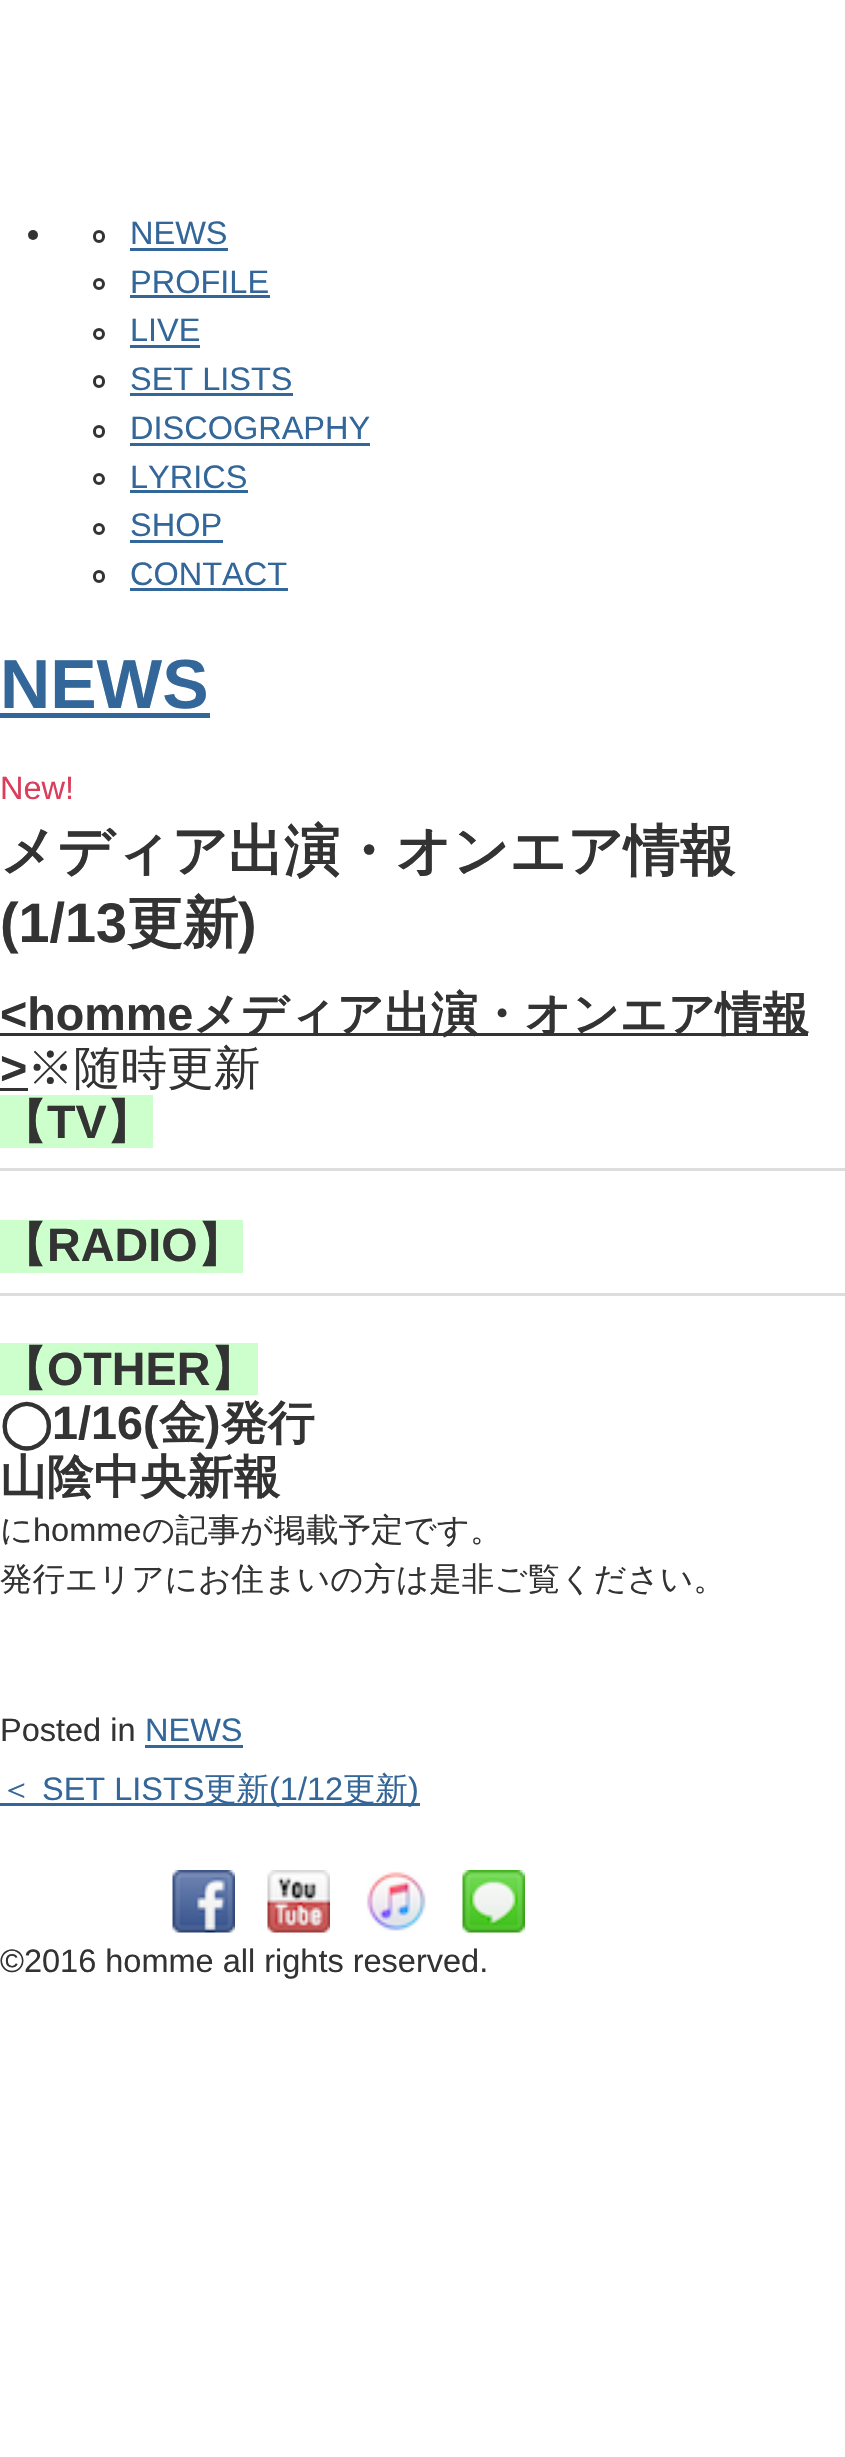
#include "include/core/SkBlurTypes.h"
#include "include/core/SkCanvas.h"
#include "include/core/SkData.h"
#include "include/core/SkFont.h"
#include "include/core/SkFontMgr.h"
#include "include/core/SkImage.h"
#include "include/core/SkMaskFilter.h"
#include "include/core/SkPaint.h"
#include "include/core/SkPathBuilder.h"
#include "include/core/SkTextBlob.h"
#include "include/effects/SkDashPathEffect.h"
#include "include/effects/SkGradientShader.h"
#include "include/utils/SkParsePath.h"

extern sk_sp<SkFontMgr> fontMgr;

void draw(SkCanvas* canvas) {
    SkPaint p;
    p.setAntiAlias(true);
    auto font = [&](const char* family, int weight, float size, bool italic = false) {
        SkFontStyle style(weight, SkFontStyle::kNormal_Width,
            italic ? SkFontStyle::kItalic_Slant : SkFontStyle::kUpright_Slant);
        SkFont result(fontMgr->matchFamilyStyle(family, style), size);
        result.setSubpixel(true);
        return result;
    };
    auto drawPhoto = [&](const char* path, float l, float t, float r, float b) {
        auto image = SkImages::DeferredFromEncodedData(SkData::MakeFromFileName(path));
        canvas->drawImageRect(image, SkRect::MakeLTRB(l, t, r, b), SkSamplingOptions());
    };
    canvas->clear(0xFFFFFFFF);
    p.setColor(0xFF333333);
    canvas->drawCircle(33, 235, 5, p);
    p.setStyle(SkPaint::kStroke_Style);
    p.setStrokeWidth(3);
    canvas->drawRoundRect(SkRect::MakeLTRB(94.5f, 231.5f, 103.5f, 241.5f), 4.5f, 4.5f, p);
    auto font1 = font("Liberation Sans", 400, 32.5f);
    p.setStyle(SkPaint::kFill_Style);
    p.setColor(0xFF336699);
    canvas->drawString("NEWS", 130, 244, font1, p);
    canvas->drawRect(SkRect::MakeLTRB(130, 248, 228, 251), p);
    p.setStyle(SkPaint::kStroke_Style);
    p.setColor(0xFF333333);
    canvas->drawCircle(99, 284, 4.5f, p);
    p.setStyle(SkPaint::kFill_Style);
    p.setColor(0xFF336699);
    canvas->drawString("PROFILE", 130, 293, font1, p);
    canvas->drawRect(SkRect::MakeLTRB(130, 295, 270, 298), p);
    p.setStyle(SkPaint::kStroke_Style);
    p.setColor(0xFF333333);
    canvas->drawCircle(99, 334, 4.5f, p);
    p.setStyle(SkPaint::kFill_Style);
    p.setColor(0xFF336699);
    canvas->drawString("LIVE", 130, 341, font1, p);
    canvas->drawRect(SkRect::MakeLTRB(130, 345, 200, 348), p);
    p.setStyle(SkPaint::kStroke_Style);
    p.setColor(0xFF333333);
    canvas->drawRoundRect(SkRect::MakeLTRB(94.5f, 376.5f, 103.5f, 386.5f), 4.5f, 4.5f, p);
    p.setStyle(SkPaint::kFill_Style);
    p.setColor(0xFF336699);
    canvas->drawString("SET LISTS", 130, 390, font1, p);
    canvas->drawRect(SkRect::MakeLTRB(130, 393, 293, 396), p);
    p.setStyle(SkPaint::kStroke_Style);
    p.setColor(0xFF333333);
    canvas->drawRoundRect(SkRect::MakeLTRB(94.5f, 426.5f, 103.5f, 436.5f), 4.5f, 4.5f, p);
    p.setStyle(SkPaint::kFill_Style);
    p.setColor(0xFF336699);
    canvas->drawString("DISCOGRAPHY", 130, 439, font1, p);
    canvas->drawRect(SkRect::MakeLTRB(130, 443, 370, 446), p);
    p.setStyle(SkPaint::kStroke_Style);
    p.setColor(0xFF333333);
    canvas->drawCircle(99, 479, 4.5f, p);
    p.setStyle(SkPaint::kFill_Style);
    p.setColor(0xFF336699);
    canvas->drawString("LYRICS", 130, 488, font1, p);
    canvas->drawRect(SkRect::MakeLTRB(130, 490, 248, 493), p);
    p.setStyle(SkPaint::kStroke_Style);
    p.setColor(0xFF333333);
    canvas->drawCircle(99, 529, 4.5f, p);
    p.setStyle(SkPaint::kFill_Style);
    p.setColor(0xFF336699);
    canvas->drawString("SHOP", 130, 536, font1, p);
    canvas->drawRect(SkRect::MakeLTRB(130, 540, 223, 543), p);
    p.setStyle(SkPaint::kStroke_Style);
    p.setColor(0xFF333333);
    canvas->drawRoundRect(SkRect::MakeLTRB(94.5f, 571.5f, 103.5f, 581.5f), 4.5f, 4.5f, p);
    p.setStyle(SkPaint::kFill_Style);
    p.setColor(0xFF336699);
    canvas->drawString("CONTACT", 130, 585, font1, p);
    canvas->drawRect(SkRect::MakeLTRB(130, 588, 288, 591), p);
    auto font2 = font("Liberation Sans", 700, 69.5f);
    canvas->drawString("NEWS", 0, 708, font2, p);
    canvas->drawRect(SkRect::MakeLTRB(0, 713, 210, 718), p);
    p.setColor(0xFFDA3E5A);
    canvas->drawString("New!", 0, 799, font1, p);
    auto font3 = font("WenQuanYi Zen Hei", 700, 55.75f);
    p.setColor(0xFF333333);
    canvas->drawString("メディア出演・オンエア情報", 0, 870, font3, p);
    auto font4 = font("Liberation Sans", 700, 55.75f);
    canvas->drawString("(1/13", 0, 942, font4, p);
    canvas->drawString("更新", 127, 942, font3, p);
    canvas->drawString(")", 238, 942, font4, p);
    auto font5 = font("Liberation Sans", 700, 46.7f);
    canvas->drawString("<homme", 0, 1030, font5, p);
    canvas->drawRect(SkRect::MakeLTRB(0, 1033, 808, 1036), p);
    auto font6 = font("WenQuanYi Zen Hei", 700, 46.7f);
    canvas->drawString("メディア出演・オンエア情報", 193, 1030, font6, p);
    canvas->drawString(">", 0, 1084, font5, p);
    canvas->drawRect(SkRect::MakeLTRB(0, 1088, 28, 1091), p);
    auto font7 = font("WenQuanYi Zen Hei", 500, 46.7f);
    canvas->drawString("※随時更新", 27, 1084, font7, p);
    p.setColor(0xFFCCFFCC);
    canvas->drawRect(SkRect::MakeLTRB(0, 1095, 153, 1148), p);
    p.setColor(0xFF333333);
    canvas->drawString("【", 0, 1138, font6, p);
    canvas->drawString("TV", 47, 1138, font5, p);
    canvas->drawString("】", 106, 1138, font6, p);
    p.setColor(0xFFDDDDDD);
    canvas->drawRect(SkRect::MakeLTRB(0, 1168, 845, 1171), p);
    p.setColor(0xFFCCFFCC);
    canvas->drawRect(SkRect::MakeLTRB(0, 1220, 243, 1273), p);
    p.setColor(0xFF333333);
    canvas->drawString("【", 0, 1261, font6, p);
    canvas->drawString("RADIO", 47, 1261, font5, p);
    canvas->drawString("】", 197, 1261, font6, p);
    p.setColor(0xFFDDDDDD);
    canvas->drawRect(SkRect::MakeLTRB(0, 1293, 845, 1296), p);
    p.setColor(0xFFCCFFCC);
    canvas->drawRect(SkRect::MakeLTRB(0, 1343, 258, 1395), p);
    p.setColor(0xFF333333);
    canvas->drawString("【", 0, 1385, font6, p);
    canvas->drawString("OTHER", 47, 1385, font5, p);
    canvas->drawString("】", 210, 1385, font6, p);
    auto font8 = font("DejaVu Sans", 700, 46.7f);
    canvas->drawString("◯", 0, 1439, font8, p);
    canvas->drawString("1/16(", 52, 1439, font5, p);
    canvas->drawString("金", 159, 1439, font6, p);
    canvas->drawString(")", 205, 1439, font5, p);
    canvas->drawString("発行", 221, 1439, font6, p);
    canvas->drawString("山陰中央新報", 0, 1493, font6, p);
    auto font9 = font("WenQuanYi Zen Hei", 500, 32.5f);
    canvas->drawString("に", 0, 1541, font9, p);
    canvas->drawString("homme", 33, 1541, font1, p);
    canvas->drawString("の記事が掲載予定です。", 142, 1541, font9, p);
    canvas->drawString("発行エリアにお住まいの方は是非ご覧ください。", 0, 1590, font9, p);
    canvas->drawString("Posted in", 0, 1741, font1, p);
    p.setColor(0xFF336699);
    canvas->drawString("NEWS", 145, 1741, font1, p);
    canvas->drawRect(SkRect::MakeLTRB(145, 1745, 243, 1748), p);
    canvas->drawString("＜", 0, 1800, font9, p);
    canvas->drawString("SET LISTS", 42, 1800, font1, p);
    canvas->drawRect(SkRect::MakeLTRB(0, 1803, 420, 1806), p);
    canvas->drawString("更新", 204, 1800, font9, p);
    canvas->drawString("(1/12", 269, 1800, font1, p);
    canvas->drawString("更新", 343, 1800, font9, p);
    canvas->drawString(")", 408, 1800, font1, p);
    drawPhoto("media/1.png", 172, 1870, 235, 1933);
    drawPhoto("media/2.png", 267, 1870, 330, 1933);
    drawPhoto("media/3.png", 366, 1871, 426, 1932);
    drawPhoto("media/4.png", 462, 1870, 525, 1933);
    p.setColor(0xFF333333);
    canvas->drawString("©2016 homme all rights reserved.", 0, 1972, font1, p);
}
